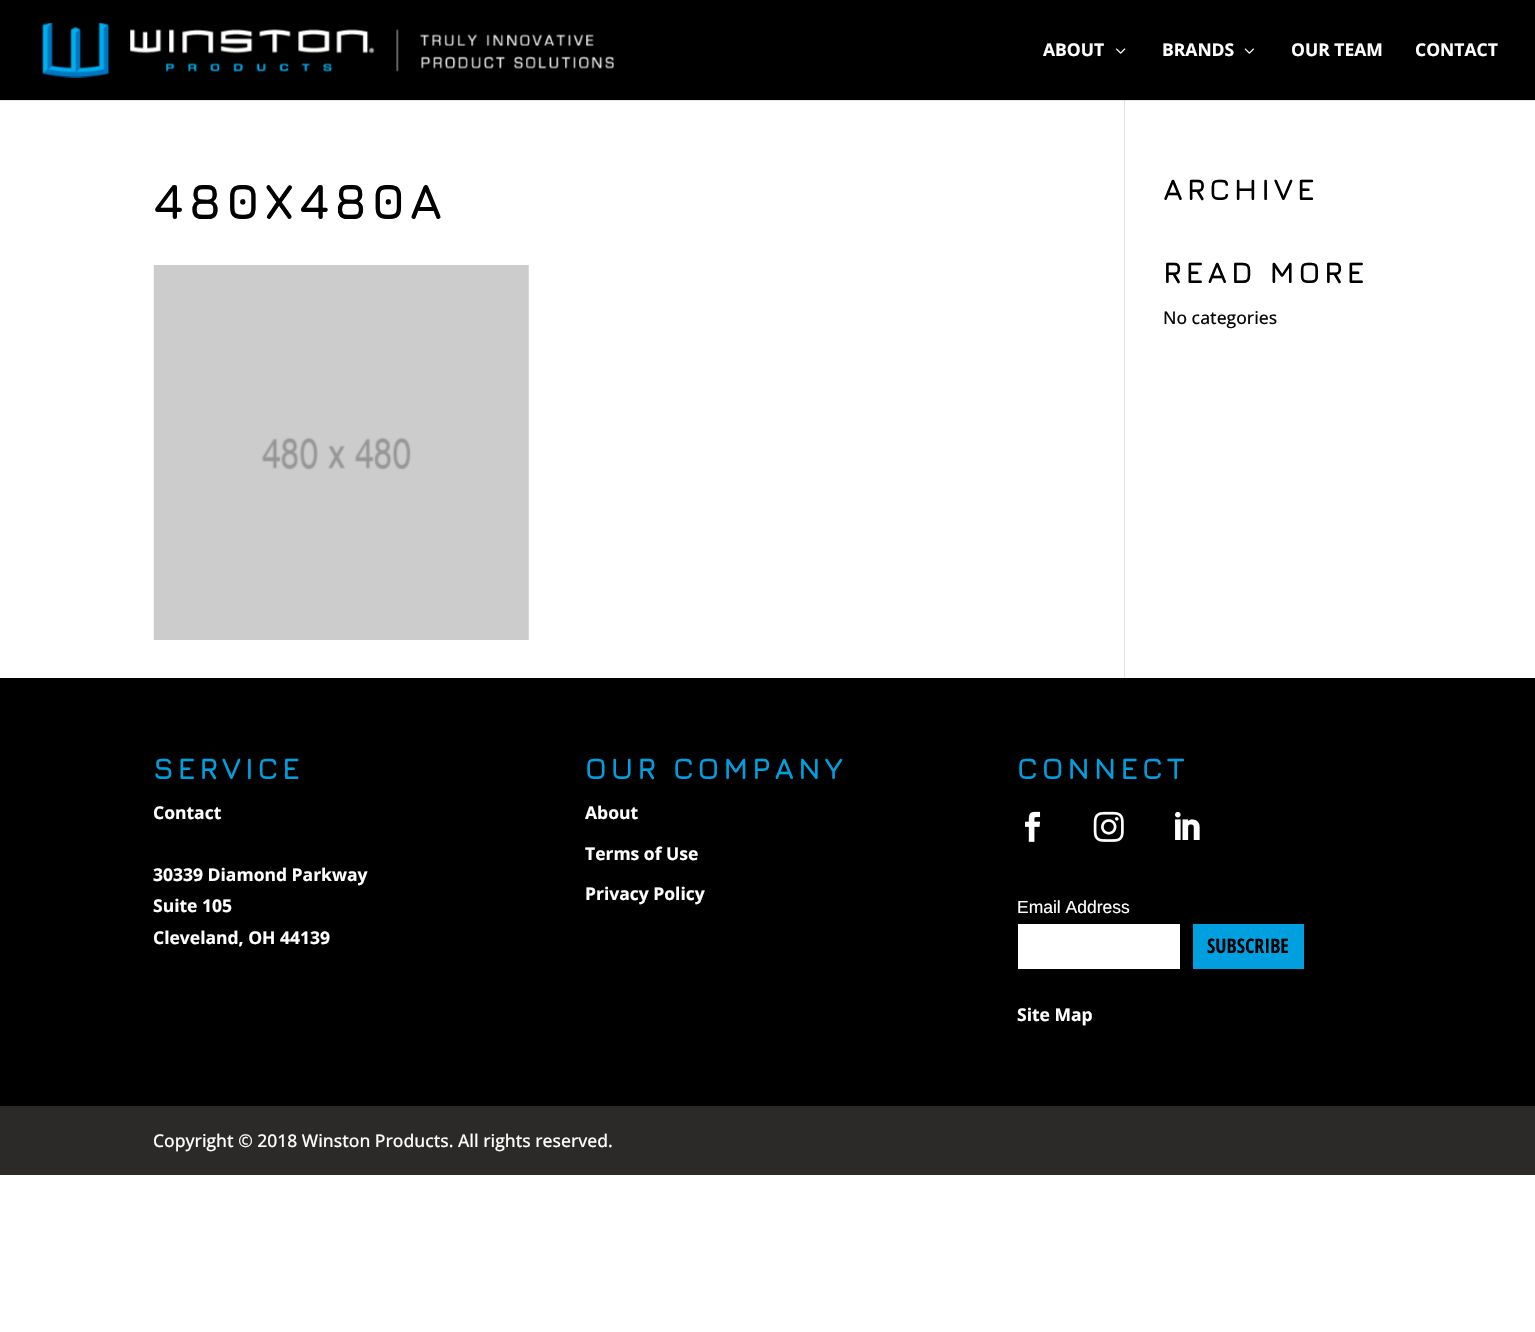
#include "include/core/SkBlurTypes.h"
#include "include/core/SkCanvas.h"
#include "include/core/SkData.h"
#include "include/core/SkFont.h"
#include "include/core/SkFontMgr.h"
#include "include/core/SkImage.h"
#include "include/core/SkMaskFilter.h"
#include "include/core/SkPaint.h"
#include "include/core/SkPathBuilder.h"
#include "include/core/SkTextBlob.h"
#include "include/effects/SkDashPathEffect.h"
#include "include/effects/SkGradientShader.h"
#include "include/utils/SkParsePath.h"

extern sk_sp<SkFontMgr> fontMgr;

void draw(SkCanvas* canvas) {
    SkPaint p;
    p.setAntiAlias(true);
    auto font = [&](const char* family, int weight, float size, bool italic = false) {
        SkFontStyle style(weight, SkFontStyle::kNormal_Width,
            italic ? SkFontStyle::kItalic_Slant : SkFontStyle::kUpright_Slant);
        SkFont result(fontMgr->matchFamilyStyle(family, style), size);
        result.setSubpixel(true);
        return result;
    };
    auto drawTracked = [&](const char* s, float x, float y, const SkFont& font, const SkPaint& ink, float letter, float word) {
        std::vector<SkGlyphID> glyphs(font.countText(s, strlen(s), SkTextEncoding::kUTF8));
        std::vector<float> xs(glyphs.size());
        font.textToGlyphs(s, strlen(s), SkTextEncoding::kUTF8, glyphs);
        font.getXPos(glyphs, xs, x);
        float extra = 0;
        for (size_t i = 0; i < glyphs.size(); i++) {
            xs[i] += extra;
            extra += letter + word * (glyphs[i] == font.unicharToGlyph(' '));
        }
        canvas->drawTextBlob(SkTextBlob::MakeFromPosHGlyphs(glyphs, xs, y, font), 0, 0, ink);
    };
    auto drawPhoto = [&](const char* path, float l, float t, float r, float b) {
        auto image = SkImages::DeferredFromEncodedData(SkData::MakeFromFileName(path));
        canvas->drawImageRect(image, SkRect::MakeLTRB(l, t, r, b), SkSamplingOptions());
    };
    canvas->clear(0xFFFFFFFF);
    p.setColor(0xFFE6E6E6);
    canvas->drawRect(SkRect::MakeLTRB(0, 100, 1535, 101), p);
    p.setColor(0xFF000000);
    canvas->drawRect(SkRect::MakeLTRB(0, 0, 1535, 100), p);
    drawPhoto("media/1.png", 42, 23, 614, 78);
    auto font1 = font("Open Sans", 700, 17.5f);
    p.setColor(0xFFFFFFFF);
    canvas->drawString("ABOUT", 1043, 56, font1, p);
    drawPhoto("media/2.png", 1116, 48, 1126, 54);
    canvas->drawString("BRANDS", 1162, 56, font1, p);
    drawPhoto("media/3.png", 1244, 48, 1254, 54);
    canvas->drawString("OUR TEAM", 1291, 56, font1, p);
    canvas->drawString("CONTACT", 1415, 56, font1, p);
    p.setColor(0xFFE2E2E2);
    canvas->drawRect(SkRect::MakeLTRB(1124, 100, 1125, 678), p);
    p.setColor(0xFFCBCBCB);
    canvas->drawRect(SkRect::MakeLTRB(1124, 100, 1125, 101), p);
    auto font2 = font("Jura", 700, 50);
    p.setColor(0xFF000000);
    drawTracked("480X480A", 153, 219, font2, p, 3.75f, 0);
    drawPhoto("media/4.png", 153, 265, 529, 640);
    auto font3 = font("Jura", 700, 30);
    drawTracked("ARCHIVE", 1163, 200, font3, p, 3.75f, 0);
    drawTracked("READ MORE", 1163, 283, font3, p, 3.75f, 0);
    auto font4 = font("Open Sans", 500, 17.5f);
    p.setColor(0xFF0A0909);
    canvas->drawString("No categories", 1163, 324, font4, p);
    p.setColor(0xFF000000);
    canvas->drawRect(SkRect::MakeLTRB(0, 678, 1535, 1106), p);
    p.setColor(0xFF009FDF);
    drawTracked("SERVICE", 153, 779, font3, p, 3.75f, 0);
    p.setColor(0xFFFFFFFF);
    {
        const struct { const char* s; float x, y; } items[] = {
            {"Contact", 153, 819},
            {"30339 Diamond Parkway", 153, 881},
            {"Suite 105", 153, 912},
            {"Cleveland, OH 44139", 153, 944},
        };
        for (auto [s, x, y] : items) {
            canvas->drawString(s, x, y, font1, p);
        }
    }
    p.setColor(0xFF009FDF);
    drawTracked("OUR COMPANY", 585, 779, font3, p, 3.75f, 0);
    p.setColor(0xFFFFFFFF);
    {
        const struct { const char* s; float x, y; } items[] = {
            {"About", 585, 819},
            {"Terms of Use", 585, 860},
            {"Privacy Policy", 585, 900},
        };
        for (auto [s, x, y] : items) {
            canvas->drawString(s, x, y, font1, p);
        }
    }
    p.setColor(0xFF009FDF);
    drawTracked("CONNECT", 1017, 779, font3, p, 3.75f, 0);
    drawPhoto("media/5.png", 1025, 811, 1041, 842);
    drawPhoto("media/6.png", 1093, 811, 1124, 842);
    drawPhoto("media/7.png", 1175, 811, 1200, 840);
    auto font5 = font("Liberation Sans", 400, 17.5f);
    p.setColor(0xFFFFFFFF);
    canvas->drawString("Email Address", 1017, 913, font5, p);
    canvas->drawRect(SkRect::MakeLTRB(1018, 924, 1180, 969), p);
    p.setColor(0xFF009FDF);
    canvas->drawRect(SkRect::MakeLTRB(1193, 924, 1304, 969), p);
    auto font6 = font("Open Sans Condensed", 700, 20);
    p.setColor(0xFF000000);
    canvas->drawString("SUBSCRIBE", 1207, 953, font6, p);
    p.setColor(0xFFFFFFFF);
    canvas->drawString("Site Map", 1017, 1021, font1, p);
    p.setColor(0xFF2C2A29);
    canvas->drawRect(SkRect::MakeLTRB(0, 1106, 1535, 1175), p);
    p.setColor(0xFFFFFFFF);
    canvas->drawString("Copyright © 2018 Winston Products. All rights reserved.", 153, 1147, font4, p);
}
